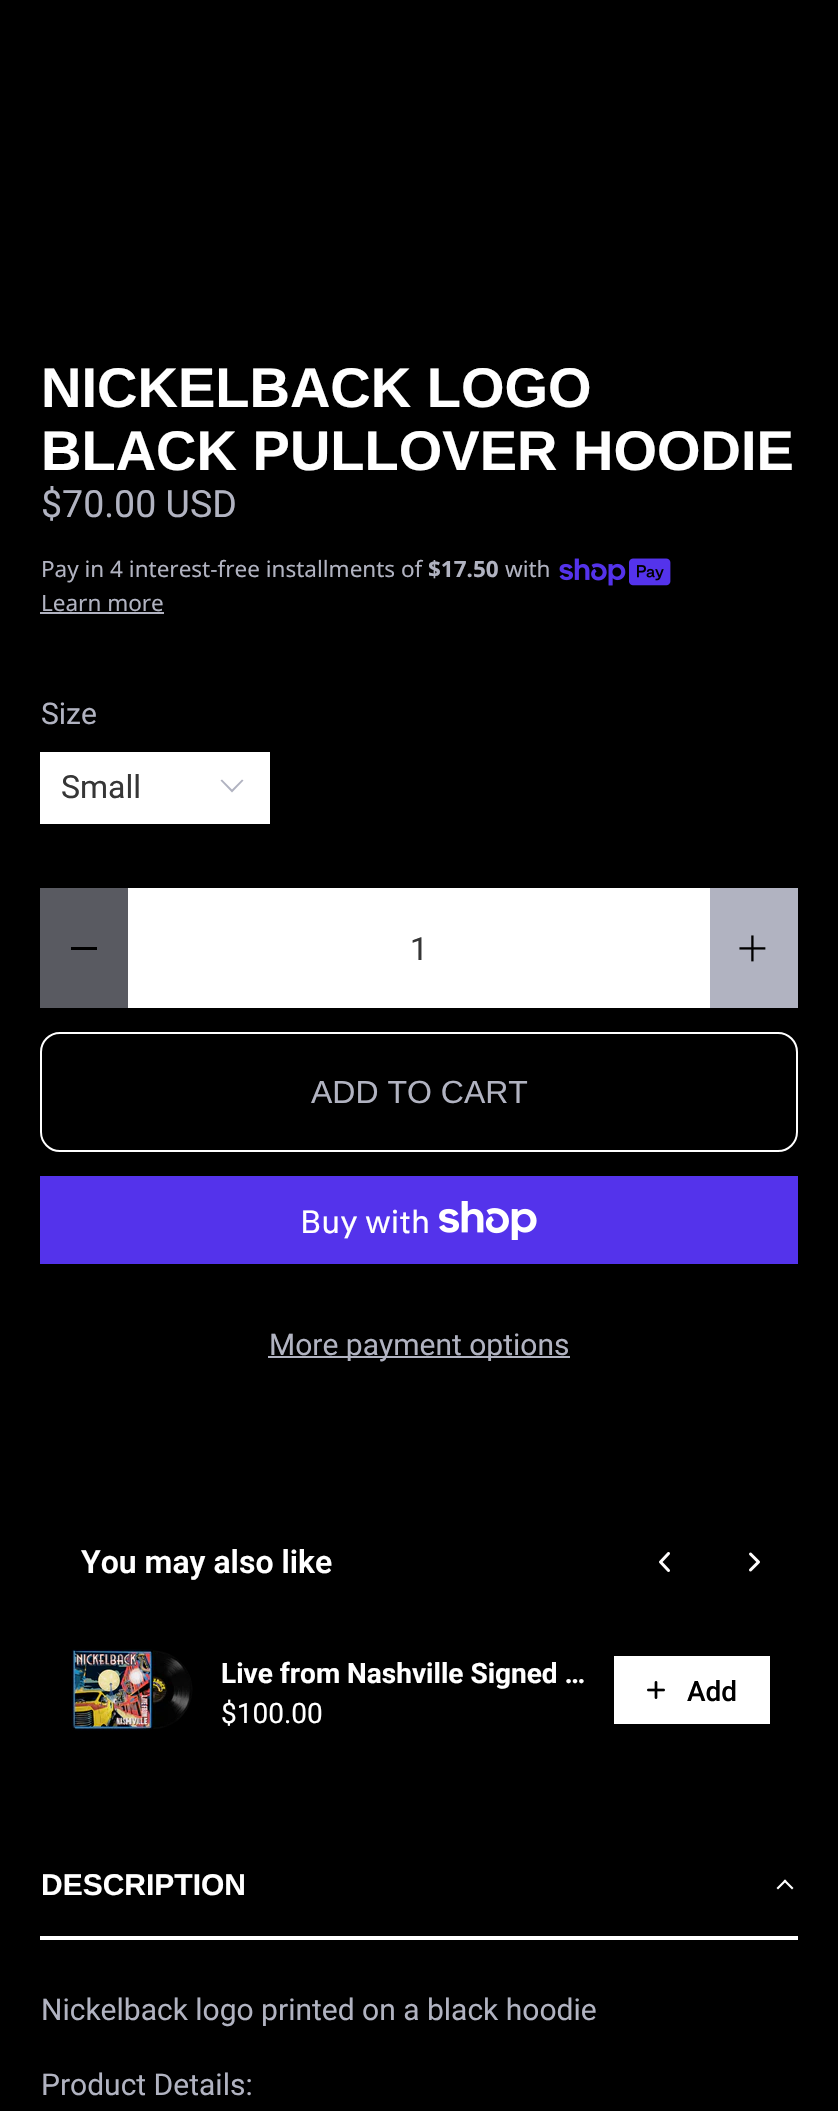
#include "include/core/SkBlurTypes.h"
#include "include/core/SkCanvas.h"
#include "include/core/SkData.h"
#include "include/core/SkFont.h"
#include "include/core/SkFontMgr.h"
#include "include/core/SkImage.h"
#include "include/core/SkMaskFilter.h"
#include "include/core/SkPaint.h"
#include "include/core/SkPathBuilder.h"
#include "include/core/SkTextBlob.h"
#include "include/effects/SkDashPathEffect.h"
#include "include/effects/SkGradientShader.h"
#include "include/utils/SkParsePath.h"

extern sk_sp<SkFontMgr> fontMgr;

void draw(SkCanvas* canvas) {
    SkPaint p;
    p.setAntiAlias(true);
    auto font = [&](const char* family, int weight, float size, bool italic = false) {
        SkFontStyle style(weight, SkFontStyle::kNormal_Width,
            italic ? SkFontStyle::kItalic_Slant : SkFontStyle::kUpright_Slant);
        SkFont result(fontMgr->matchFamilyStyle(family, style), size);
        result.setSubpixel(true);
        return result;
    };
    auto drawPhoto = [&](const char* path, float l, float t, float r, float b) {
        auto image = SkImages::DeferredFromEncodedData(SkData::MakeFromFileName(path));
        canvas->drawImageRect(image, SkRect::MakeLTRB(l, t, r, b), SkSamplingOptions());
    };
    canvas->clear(0xFF000000);
    auto font1 = font("Liberation Sans", 700, 56);
    p.setColor(0xFFFFFFFF);
    canvas->drawString("NICKELBACK LOGO", 41, 407, font1, p);
    canvas->drawString("BLACK PULLOVER HOODIE", 41, 470, font1, p);
    auto font2 = font("Roboto", 400, 37.5f);
    p.setColor(0xFFB1B3C1);
    canvas->drawString("$70.00 USD", 41, 517, font2, p);
    auto font3 = font("Noto Sans", 400, 22.5f);
    canvas->drawString("Pay in 4 interest-free installments of", 41, 577, font3, p);
    auto font4 = font("Noto Sans", 700, 22.5f);
    canvas->drawString("$17.50", 428, 577, font4, p);
    canvas->drawString("with", 505, 577, font3, p);
    drawPhoto("media/1.png", 559, 558, 671, 586);
    canvas->drawString("Learn more", 41, 611, font3, p);
    canvas->drawRect(SkRect::MakeLTRB(40, 612, 164, 614), p);
    auto font5 = font("Roboto", 400, 30);
    canvas->drawString("Size", 41, 724, font5, p);
    p.setColor(0xFFFFFFFF);
    canvas->drawRect(SkRect::MakeLTRB(40, 752, 270, 824), p);
    auto font6 = font("Roboto", 400, 32);
    p.setColor(0xFF363636);
    canvas->drawString("Small", 61, 798, font6, p);
    p.setColor(0xFFB1B3C1);
    canvas->drawPath(SkPathBuilder().moveTo(232, 792.5f).lineTo(220.5f, 780.5f).lineTo(222, 779.5f).lineTo(232, 789.5f).lineTo(242, 779.5f).lineTo(243.5f, 780.5f).close().detach(), p);
    {
        const struct { float l, t, r, b; SkColor color; } items[] = {
            {40, 888, 128, 1008, 0xFF595A61},
            {71, 947, 97, 950, 0xFF000000},
            {128, 888, 710, 1008, 0xFFFFFFFF},
        };
        for (auto [l, t, r, b, color] : items) {
            p.setColor(color);
            canvas->drawRect(SkRect::MakeLTRB(l, t, r, b), p);
        }
    }
    p.setColor(0xFF363636);
    canvas->drawString("1", 410, 960, font6, p);
    p.setColor(0xFFB1B3C1);
    canvas->drawRect(SkRect::MakeLTRB(710, 888, 798, 1008), p);
    drawPhoto("media/2.png", 739, 935, 766, 962);
    p.setStyle(SkPaint::kStroke_Style);
    p.setStrokeWidth(2);
    p.setColor(0xFFFFFFFF);
    canvas->drawRoundRect(SkRect::MakeLTRB(41, 1033, 797, 1151), 19, 19, p);
    auto font7 = font("Liberation Sans", 400, 32);
    p.setStyle(SkPaint::kFill_Style);
    p.setColor(0xFFB1B3C1);
    canvas->drawString("ADD TO CART", 311, 1103, font7, p);
    p.setColor(0xFF5433EB);
    canvas->drawRect(SkRect::MakeLTRB(40, 1176, 798, 1264), p);
    auto font8 = font("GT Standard", 400, 32);
    p.setColor(0xFFFFFFFF);
    canvas->drawString("Buy with", 300, 1233, font8, p);
    drawPhoto("media/3.png", 439, 1201, 537, 1240);
    p.setColor(0xFFB1B3C1);
    canvas->drawRect(SkRect::MakeLTRB(268, 1356, 570, 1358), p);
    canvas->drawString("More payment options", 269, 1355, font5, p);
    auto font9 = font("Roboto", 600, 32);
    p.setColor(0xFFFFFFFF);
    canvas->drawString("You may also like", 81, 1573, font9, p);
    drawPhoto("media/4.png", 659, 1552, 670, 1572);
    drawPhoto("media/5.png", 749, 1552, 760, 1572);
    drawPhoto("media/6.png", 71, 1649, 193, 1731);
    auto font10 = font("Roboto", 700, 28);
    canvas->drawString("Live from Nashville Signed …", 221, 1683, font10, p);
    auto font11 = font("Roboto", 400, 28);
    canvas->drawString("$100.00", 221, 1723, font11, p);
    canvas->drawRect(SkRect::MakeLTRB(614, 1656, 770, 1724), p);
    drawPhoto("media/7.png", 647, 1681, 665, 1699);
    auto font12 = font("Roboto", 500, 28);
    p.setColor(0xFF000000);
    canvas->drawString("Add", 687, 1701, font12, p);
    p.setColor(0xFFFFFFFF);
    canvas->drawRect(SkRect::MakeLTRB(40, 1936, 798, 1940), p);
    auto font13 = font("Liberation Sans", 700, 30);
    canvas->drawString("DESCRIPTION", 41, 1895, font13, p);
    canvas->drawPath(SkPathBuilder().moveTo(778, 1889.5f).lineTo(776.5f, 1888).lineTo(785, 1879.5f).lineTo(786.5f, 1881).close().detach(), p);
    canvas->drawPath(SkPathBuilder().moveTo(792, 1889.5f).lineTo(783.5f, 1881).lineTo(785, 1879.5f).lineTo(793.5f, 1888).close().detach(), p);
    p.setColor(0xFFB1B3C1);
    canvas->drawString("Nickelback logo printed on a black hoodie", 41, 2020, font5, p);
    canvas->drawString("Product Details:", 41, 2095, font5, p);
}
